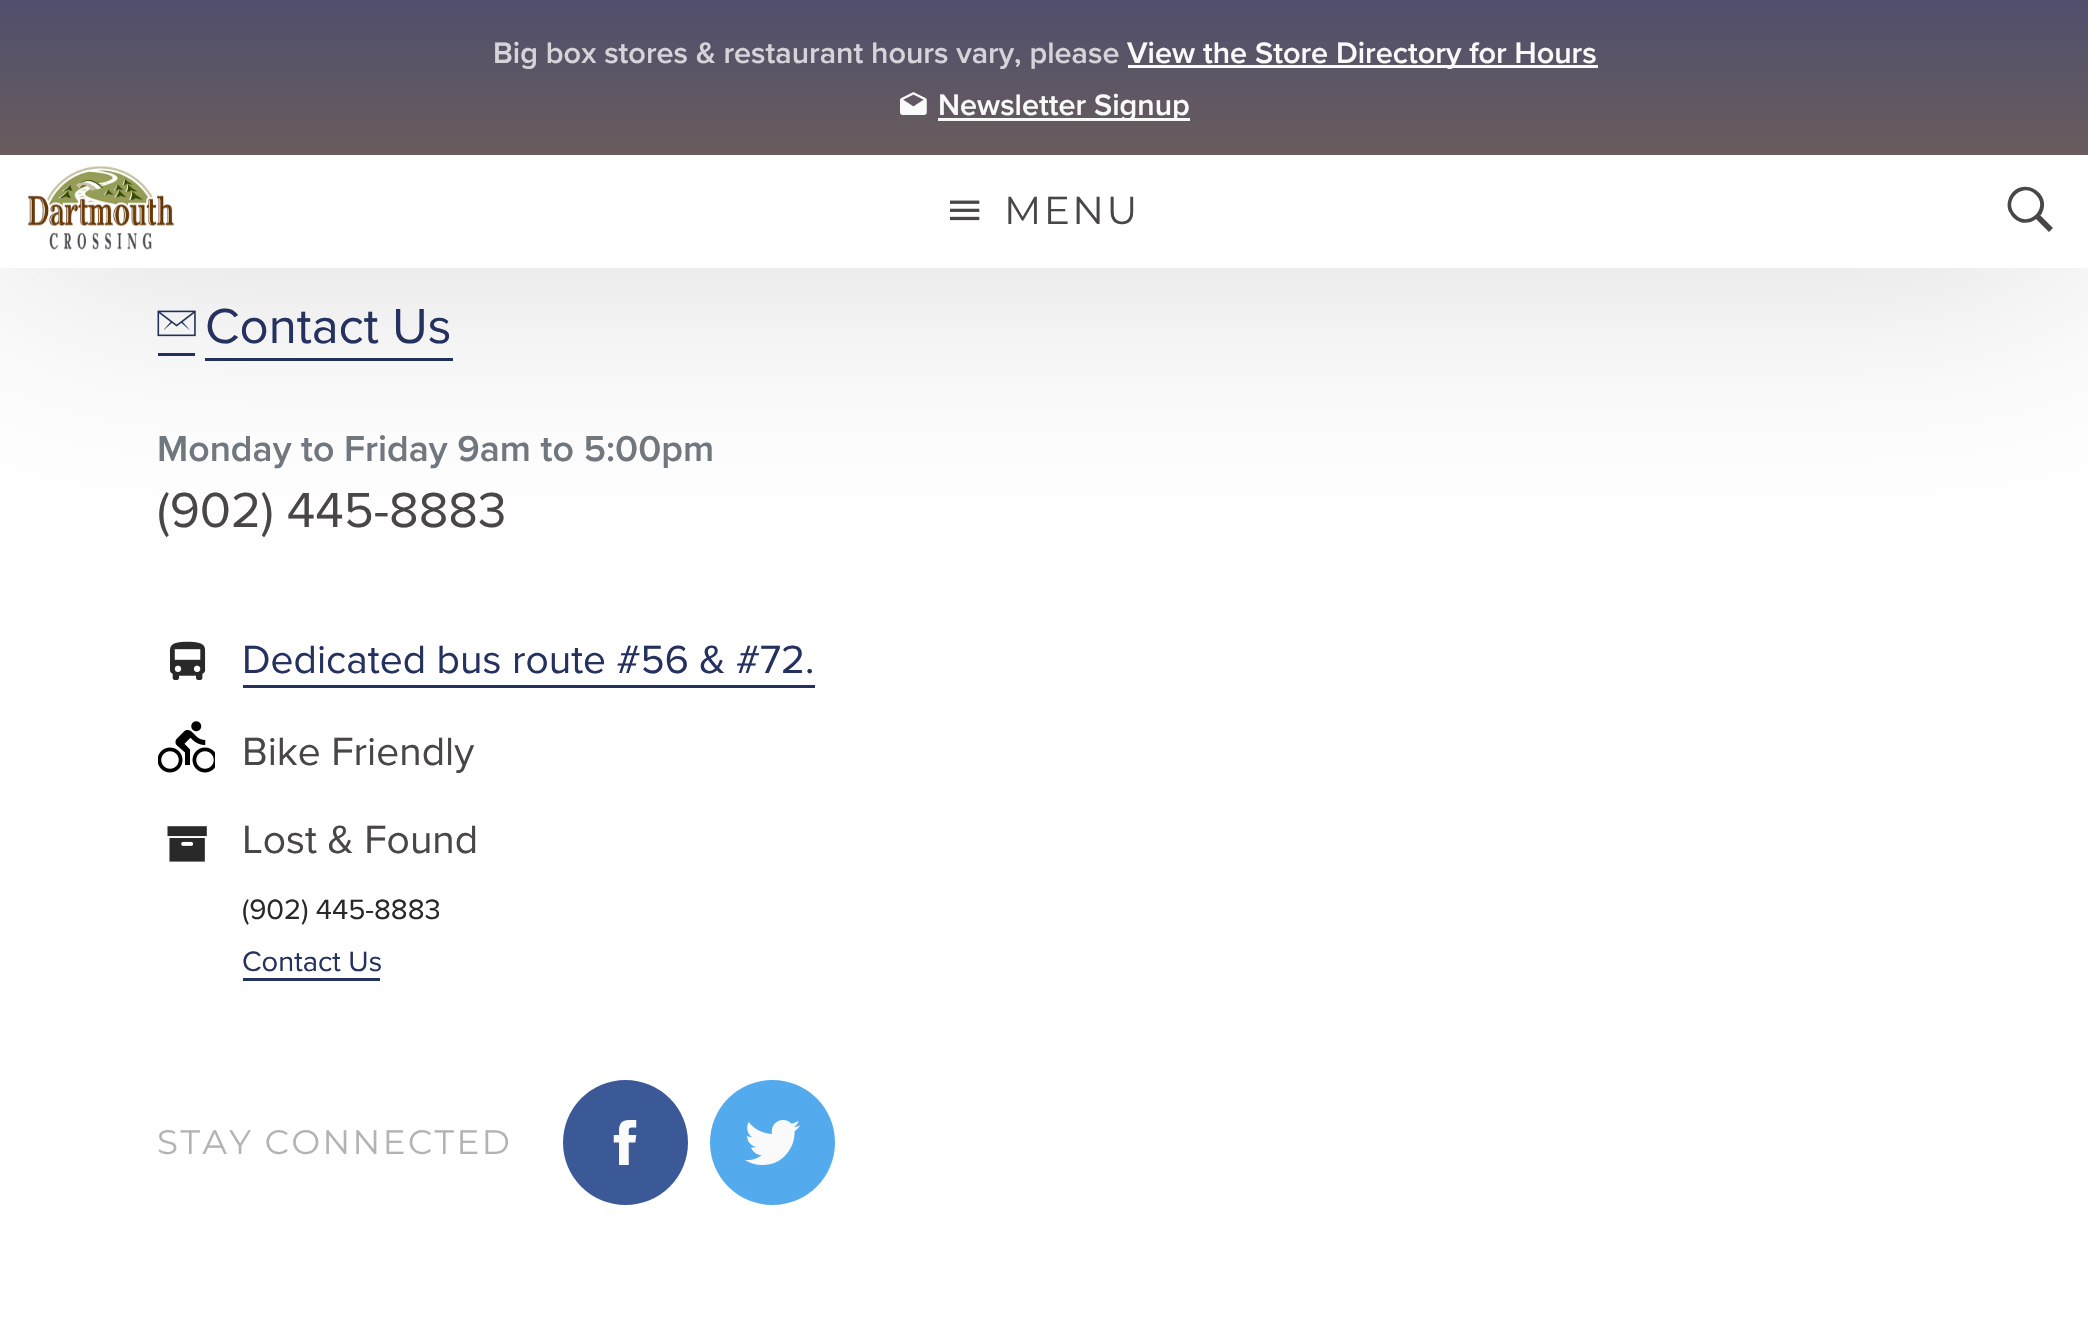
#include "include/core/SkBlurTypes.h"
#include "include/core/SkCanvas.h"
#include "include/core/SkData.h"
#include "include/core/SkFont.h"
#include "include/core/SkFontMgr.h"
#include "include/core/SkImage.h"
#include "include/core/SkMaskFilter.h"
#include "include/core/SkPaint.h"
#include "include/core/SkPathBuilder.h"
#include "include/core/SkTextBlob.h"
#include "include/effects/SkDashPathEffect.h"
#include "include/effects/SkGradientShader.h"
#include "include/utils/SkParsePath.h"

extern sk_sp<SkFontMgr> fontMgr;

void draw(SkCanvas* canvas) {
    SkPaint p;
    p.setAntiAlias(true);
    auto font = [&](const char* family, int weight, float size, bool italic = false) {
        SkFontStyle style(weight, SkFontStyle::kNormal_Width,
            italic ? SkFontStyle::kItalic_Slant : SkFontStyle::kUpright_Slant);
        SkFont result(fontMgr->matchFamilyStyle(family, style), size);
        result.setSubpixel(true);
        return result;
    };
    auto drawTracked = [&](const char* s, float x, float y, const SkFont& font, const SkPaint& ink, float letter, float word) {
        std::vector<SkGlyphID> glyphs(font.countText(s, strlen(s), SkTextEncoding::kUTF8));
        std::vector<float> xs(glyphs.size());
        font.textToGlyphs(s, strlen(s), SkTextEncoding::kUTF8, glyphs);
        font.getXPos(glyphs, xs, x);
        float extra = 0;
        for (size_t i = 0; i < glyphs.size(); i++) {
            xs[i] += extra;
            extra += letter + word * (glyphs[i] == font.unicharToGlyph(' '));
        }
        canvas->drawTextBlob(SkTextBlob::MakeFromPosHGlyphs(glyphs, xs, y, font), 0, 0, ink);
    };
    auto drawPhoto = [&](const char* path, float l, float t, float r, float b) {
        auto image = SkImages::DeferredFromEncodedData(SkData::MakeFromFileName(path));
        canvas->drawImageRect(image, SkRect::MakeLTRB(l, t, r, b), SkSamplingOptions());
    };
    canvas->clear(0xFFFFFFFF);
    p.setColor(0xFF25325F);
    canvas->drawRect(SkRect::MakeLTRB(158, 353, 195, 356), p);
    canvas->drawRect(SkRect::MakeLTRB(205, 358, 453, 361), p);
    drawPhoto("media/4.png", 157, 310, 196, 337);
    drawPhoto("media/5.png", 170, 641, 206, 680);
    p.setColor(0x26000000);
    p.setMaskFilter(SkMaskFilter::MakeBlur(kNormal_SkBlurStyle, 125));
    canvas->drawRect(SkRect::MakeLTRB(0, 0, 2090, 268), p);
    p.setMaskFilter(nullptr);
    {
        const SkColor colors[] = {0xFF2A355B, 0xFF494646};
        const float stops[] = {0, 1};
        const SkPoint ends[] = {{1045, 0}, {1045, 155}};
        p.setShader(SkGradientShader::MakeLinear(ends, colors, stops, 2, SkTileMode::kClamp));
        p.setAlpha(255);
    }
    canvas->drawRect(SkRect::MakeLTRB(0, 0, 2088, 155), p);
    p.setShader(nullptr);
    p.setColor(0x33E6B4B4);
    canvas->drawRect(SkRect::MakeLTRB(0, 0, 2088, 155), p);
    auto font1 = font("Proxima Nova", 600, 30.6f);
    p.setColor(0xFFD5D4D9);
    canvas->drawString("Big box stores & restaurant hours vary, please", 493, 63, font1, p);
    p.setColor(0xFFFAFAFA);
    canvas->drawRect(SkRect::MakeLTRB(1128, 65, 1598, 68), p);
    canvas->drawString("View the Store Directory for Hours", 1127, 63, font1, p);
    drawPhoto("media/1.png", 900, 92, 927, 115);
    canvas->drawRect(SkRect::MakeLTRB(938, 118, 1190, 121), p);
    canvas->drawString("Newsletter Signup", 938, 115, font1, p);
    p.setColor(0xFFFFFFFF);
    canvas->drawRect(SkRect::MakeLTRB(0, 155, 2088, 268), p);
    drawPhoto("media/2.png", 28, 166, 174, 250);
    drawPhoto("media/3.png", 950, 200, 980, 221);
    auto font2 = font("Montserrat", 400, 39);
    p.setColor(0xFF494646);
    drawTracked("MENU", 1004, 224, font2, p, 2.5f, 0);
    canvas->drawPath(SkPathBuilder().moveTo(2041, 215).lineTo(2040, 215).lineTo(2053, 228).lineTo(2049, 232).lineTo(2036, 219).cubicTo(2027, 226, 2015, 223, 2010, 213).cubicTo(2007, 209, 2007, 203, 2009, 198).cubicTo(2019, 174, 2055, 192, 2041, 215).close().moveTo(2036, 195).cubicTo(2022, 181, 2002, 202, 2016, 215).cubicTo(2029, 228, 2049, 208, 2036, 195).close().detach(), p);
    auto font3 = font("Proxima Nova", 400, 51);
    p.setColor(0xFF25325F);
    canvas->drawString("Contact Us", 205, 343, font3, p);
    auto font4 = font("Proxima Nova", 600, 37.4f);
    p.setColor(0xFF71777F);
    canvas->drawString("Monday to Friday 9am to 5:00pm", 157, 461, font4, p);
    p.setColor(0xFF494646);
    canvas->drawString("(902) 445-8883", 157, 527, font3, p);
    auto font5 = font("Proxima Nova", 400, 40.75f);
    p.setColor(0xFF25325F);
    canvas->drawString("Dedicated bus route #56 & #72.", 242, 673, font5, p);
    canvas->drawRect(SkRect::MakeLTRB(243, 685, 815, 688), p);
    drawPhoto("media/6.png", 158, 721, 215, 773);
    p.setColor(0xFF494646);
    canvas->drawString("Bike Friendly", 242, 765, font5, p);
    drawPhoto("media/7.png", 167, 826, 207, 862);
    canvas->drawString("Lost & Found", 242, 853, font5, p);
    auto font6 = font("Proxima Nova", 400, 29);
    p.setColor(0xFF292929);
    canvas->drawString("(902) 445-8883", 242, 919, font6, p);
    p.setColor(0xFF25325F);
    canvas->drawString("Contact Us", 242, 971, font6, p);
    canvas->drawRect(SkRect::MakeLTRB(243, 978, 380, 981), p);
    auto font7 = font("Montserrat", 400, 34);
    p.setColor(0xFFB3B3B3);
    drawTracked("STAY CONNECTED", 157, 1154, font7, p, 2.5f, 0);
    p.setColor(0xFF3B5897);
    canvas->drawCircle(625.5f, 1142.5f, 62.5f, p);
    drawPhoto("media/8.png", 613, 1120, 637, 1165);
    p.setColor(0xFF53ABEE);
    canvas->drawCircle(772.5f, 1142.5f, 62.5f, p);
    drawPhoto("media/9.png", 745, 1120, 800, 1165);
}
